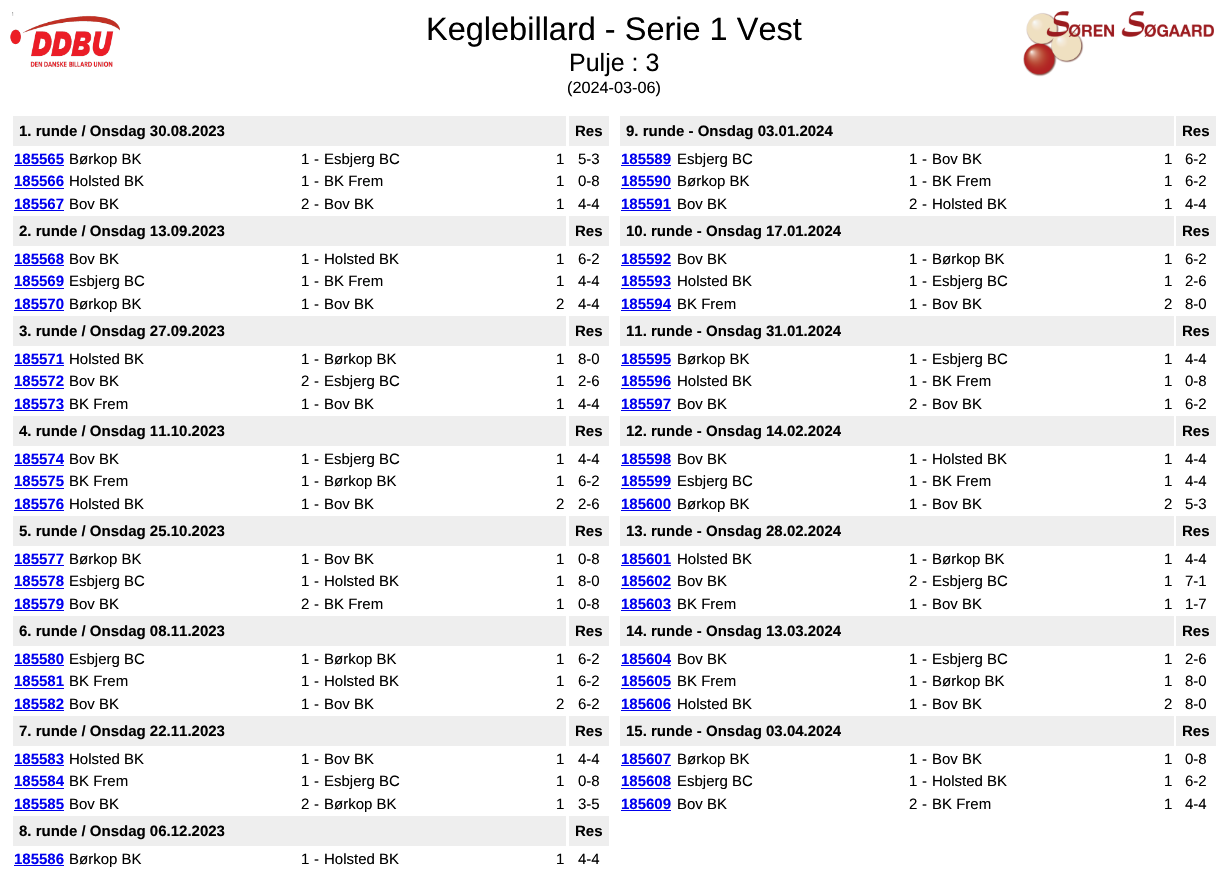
#include "include/core/SkBlurTypes.h"
#include "include/core/SkCanvas.h"
#include "include/core/SkData.h"
#include "include/core/SkFont.h"
#include "include/core/SkFontMgr.h"
#include "include/core/SkImage.h"
#include "include/core/SkMaskFilter.h"
#include "include/core/SkPaint.h"
#include "include/core/SkPathBuilder.h"
#include "include/core/SkTextBlob.h"
#include "include/effects/SkDashPathEffect.h"
#include "include/effects/SkGradientShader.h"
#include "include/utils/SkParsePath.h"

extern sk_sp<SkFontMgr> fontMgr;

void draw(SkCanvas* canvas) {
    SkPaint p;
    p.setAntiAlias(true);
    auto font = [&](const char* family, int weight, float size, bool italic = false) {
        SkFontStyle style(weight, SkFontStyle::kNormal_Width,
            italic ? SkFontStyle::kItalic_Slant : SkFontStyle::kUpright_Slant);
        SkFont result(fontMgr->matchFamilyStyle(family, style), size);
        result.setSubpixel(true);
        return result;
    };
    auto drawPhoto = [&](const char* path, float l, float t, float r, float b) {
        auto image = SkImages::DeferredFromEncodedData(SkData::MakeFromFileName(path));
        canvas->drawImageRect(image, SkRect::MakeLTRB(l, t, r, b), SkSamplingOptions());
    };
    canvas->clear(0xFFFFFFFF);
    drawPhoto("media/1.png", 10, 12, 120, 67);
    auto font1 = font("Liberation Sans", 400, 32.5f);
    p.setColor(0xFF000000);
    canvas->drawString("Keglebillard - Serie 1 Vest", 426, 40, font1, p);
    drawPhoto("media/2.png", 1023, 11, 1214, 77);
    auto font2 = font("Liberation Sans", 400, 25);
    canvas->drawString("Pulje : 3", 569, 71, font2, p);
    auto font3 = font("Liberation Sans", 400, 16.25f);
    canvas->drawString("(2024-03-06)", 567, 93, font3, p);
    p.setColor(0xFFEEEEEE);
    canvas->drawRect(SkRect::MakeLTRB(13, 116, 566, 146), p);
    auto font4 = font("Liberation Sans", 700, 15);
    p.setColor(0xFF000000);
    canvas->drawString("1. runde / Onsdag 30.08.2023", 19, 136, font4, p);
    p.setColor(0xFFEEEEEE);
    canvas->drawRect(SkRect::MakeLTRB(569, 116, 609, 146), p);
    p.setColor(0xFF000000);
    canvas->drawString("Res", 575, 136, font4, p);
    p.setColor(0xFFEEEEEE);
    canvas->drawRect(SkRect::MakeLTRB(620, 116, 1174, 146), p);
    p.setColor(0xFF000000);
    canvas->drawString("9. runde - Onsdag 03.01.2024", 626, 136, font4, p);
    p.setColor(0xFFEEEEEE);
    canvas->drawRect(SkRect::MakeLTRB(1176, 116, 1216, 146), p);
    p.setColor(0xFF000000);
    canvas->drawString("Res", 1182, 136, font4, p);
    p.setColor(0xFF0000EE);
    canvas->drawString("185565", 14, 164, font4, p);
    canvas->drawRect(SkRect::MakeLTRB(14, 165, 64, 166), p);
    auto font5 = font("Liberation Sans", 400, 15);
    p.setColor(0xFF000000);
    {
        const struct { const char* s; float x, y; } items[] = {
            {"Børkop BK", 69, 164},
            {"1", 301, 164},
            {"-", 314, 164},
            {"Esbjerg BC", 324, 164},
            {"1", 556, 164},
            {"5-3", 578, 164},
        };
        for (auto [s, x, y] : items) {
            canvas->drawString(s, x, y, font5, p);
        }
    }
    p.setColor(0xFF0000EE);
    canvas->drawString("185589", 621, 164, font4, p);
    canvas->drawRect(SkRect::MakeLTRB(621, 165, 671, 166), p);
    p.setColor(0xFF000000);
    {
        const struct { const char* s; float x, y; } items[] = {
            {"Esbjerg BC", 677, 164},
            {"1", 909, 164},
            {"-", 922, 164},
            {"Bov BK", 932, 164},
            {"1", 1164, 164},
            {"6-2", 1185, 164},
        };
        for (auto [s, x, y] : items) {
            canvas->drawString(s, x, y, font5, p);
        }
    }
    p.setColor(0xFF0000EE);
    canvas->drawString("185566", 14, 186, font4, p);
    canvas->drawRect(SkRect::MakeLTRB(14, 188, 64, 189), p);
    p.setColor(0xFF000000);
    {
        const struct { const char* s; float x, y; } items[] = {
            {"Holsted BK", 69, 186},
            {"1", 301, 186},
            {"-", 314, 186},
            {"BK Frem", 324, 186},
            {"1", 556, 186},
            {"0-8", 578, 186},
        };
        for (auto [s, x, y] : items) {
            canvas->drawString(s, x, y, font5, p);
        }
    }
    p.setColor(0xFF0000EE);
    canvas->drawString("185590", 621, 186, font4, p);
    canvas->drawRect(SkRect::MakeLTRB(621, 188, 671, 189), p);
    p.setColor(0xFF000000);
    {
        const struct { const char* s; float x, y; } items[] = {
            {"Børkop BK", 677, 186},
            {"1", 909, 186},
            {"-", 922, 186},
            {"BK Frem", 932, 186},
            {"1", 1164, 186},
            {"6-2", 1185, 186},
        };
        for (auto [s, x, y] : items) {
            canvas->drawString(s, x, y, font5, p);
        }
    }
    p.setColor(0xFF0000EE);
    canvas->drawString("185567", 14, 209, font4, p);
    canvas->drawRect(SkRect::MakeLTRB(14, 210, 64, 211), p);
    p.setColor(0xFF000000);
    {
        const struct { const char* s; float x, y; } items[] = {
            {"Bov BK", 69, 209},
            {"2", 301, 209},
            {"-", 314, 209},
            {"Bov BK", 324, 209},
            {"1", 556, 209},
            {"4-4", 578, 209},
        };
        for (auto [s, x, y] : items) {
            canvas->drawString(s, x, y, font5, p);
        }
    }
    p.setColor(0xFF0000EE);
    canvas->drawString("185591", 621, 209, font4, p);
    canvas->drawRect(SkRect::MakeLTRB(621, 210, 671, 211), p);
    p.setColor(0xFF000000);
    {
        const struct { const char* s; float x, y; } items[] = {
            {"Bov BK", 677, 209},
            {"2", 909, 209},
            {"-", 922, 209},
            {"Holsted BK", 932, 209},
            {"1", 1164, 209},
            {"4-4", 1185, 209},
        };
        for (auto [s, x, y] : items) {
            canvas->drawString(s, x, y, font5, p);
        }
    }
    p.setColor(0xFFEEEEEE);
    canvas->drawRect(SkRect::MakeLTRB(13, 216, 566, 246), p);
    p.setColor(0xFF000000);
    canvas->drawString("2. runde / Onsdag 13.09.2023", 19, 236, font4, p);
    p.setColor(0xFFEEEEEE);
    canvas->drawRect(SkRect::MakeLTRB(569, 216, 609, 246), p);
    p.setColor(0xFF000000);
    canvas->drawString("Res", 575, 236, font4, p);
    p.setColor(0xFFEEEEEE);
    canvas->drawRect(SkRect::MakeLTRB(620, 216, 1174, 246), p);
    p.setColor(0xFF000000);
    canvas->drawString("10. runde - Onsdag 17.01.2024", 626, 236, font4, p);
    p.setColor(0xFFEEEEEE);
    canvas->drawRect(SkRect::MakeLTRB(1176, 216, 1216, 246), p);
    p.setColor(0xFF000000);
    canvas->drawString("Res", 1182, 236, font4, p);
    p.setColor(0xFF0000EE);
    canvas->drawString("185568", 14, 264, font4, p);
    canvas->drawRect(SkRect::MakeLTRB(14, 265, 64, 266), p);
    p.setColor(0xFF000000);
    {
        const struct { const char* s; float x, y; } items[] = {
            {"Bov BK", 69, 264},
            {"1", 301, 264},
            {"-", 314, 264},
            {"Holsted BK", 324, 264},
            {"1", 556, 264},
            {"6-2", 578, 264},
        };
        for (auto [s, x, y] : items) {
            canvas->drawString(s, x, y, font5, p);
        }
    }
    p.setColor(0xFF0000EE);
    canvas->drawString("185592", 621, 264, font4, p);
    canvas->drawRect(SkRect::MakeLTRB(621, 265, 671, 266), p);
    p.setColor(0xFF000000);
    {
        const struct { const char* s; float x, y; } items[] = {
            {"Bov BK", 677, 264},
            {"1", 909, 264},
            {"-", 922, 264},
            {"Børkop BK", 932, 264},
            {"1", 1164, 264},
            {"6-2", 1185, 264},
        };
        for (auto [s, x, y] : items) {
            canvas->drawString(s, x, y, font5, p);
        }
    }
    p.setColor(0xFF0000EE);
    canvas->drawString("185569", 14, 286, font4, p);
    canvas->drawRect(SkRect::MakeLTRB(14, 288, 64, 289), p);
    p.setColor(0xFF000000);
    {
        const struct { const char* s; float x, y; } items[] = {
            {"Esbjerg BC", 69, 286},
            {"1", 301, 286},
            {"-", 314, 286},
            {"BK Frem", 324, 286},
            {"1", 556, 286},
            {"4-4", 578, 286},
        };
        for (auto [s, x, y] : items) {
            canvas->drawString(s, x, y, font5, p);
        }
    }
    p.setColor(0xFF0000EE);
    canvas->drawString("185593", 621, 286, font4, p);
    canvas->drawRect(SkRect::MakeLTRB(621, 288, 671, 289), p);
    p.setColor(0xFF000000);
    {
        const struct { const char* s; float x, y; } items[] = {
            {"Holsted BK", 677, 286},
            {"1", 909, 286},
            {"-", 922, 286},
            {"Esbjerg BC", 932, 286},
            {"1", 1164, 286},
            {"2-6", 1185, 286},
        };
        for (auto [s, x, y] : items) {
            canvas->drawString(s, x, y, font5, p);
        }
    }
    p.setColor(0xFF0000EE);
    canvas->drawString("185570", 14, 309, font4, p);
    canvas->drawRect(SkRect::MakeLTRB(14, 310, 64, 311), p);
    p.setColor(0xFF000000);
    {
        const struct { const char* s; float x, y; } items[] = {
            {"Børkop BK", 69, 309},
            {"1", 301, 309},
            {"-", 314, 309},
            {"Bov BK", 324, 309},
            {"2", 556, 309},
            {"4-4", 578, 309},
        };
        for (auto [s, x, y] : items) {
            canvas->drawString(s, x, y, font5, p);
        }
    }
    p.setColor(0xFF0000EE);
    canvas->drawString("185594", 621, 309, font4, p);
    canvas->drawRect(SkRect::MakeLTRB(621, 310, 671, 311), p);
    p.setColor(0xFF000000);
    {
        const struct { const char* s; float x, y; } items[] = {
            {"BK Frem", 677, 309},
            {"1", 909, 309},
            {"-", 922, 309},
            {"Bov BK", 932, 309},
            {"2", 1164, 309},
            {"8-0", 1185, 309},
        };
        for (auto [s, x, y] : items) {
            canvas->drawString(s, x, y, font5, p);
        }
    }
    p.setColor(0xFFEEEEEE);
    canvas->drawRect(SkRect::MakeLTRB(13, 316, 566, 346), p);
    p.setColor(0xFF000000);
    canvas->drawString("3. runde / Onsdag 27.09.2023", 19, 336, font4, p);
    p.setColor(0xFFEEEEEE);
    canvas->drawRect(SkRect::MakeLTRB(569, 316, 609, 346), p);
    p.setColor(0xFF000000);
    canvas->drawString("Res", 575, 336, font4, p);
    p.setColor(0xFFEEEEEE);
    canvas->drawRect(SkRect::MakeLTRB(620, 316, 1174, 346), p);
    p.setColor(0xFF000000);
    canvas->drawString("11. runde - Onsdag 31.01.2024", 626, 336, font4, p);
    p.setColor(0xFFEEEEEE);
    canvas->drawRect(SkRect::MakeLTRB(1176, 316, 1216, 346), p);
    p.setColor(0xFF000000);
    canvas->drawString("Res", 1182, 336, font4, p);
    p.setColor(0xFF0000EE);
    canvas->drawString("185571", 14, 364, font4, p);
    canvas->drawRect(SkRect::MakeLTRB(14, 365, 64, 366), p);
    p.setColor(0xFF000000);
    {
        const struct { const char* s; float x, y; } items[] = {
            {"Holsted BK", 69, 364},
            {"1", 301, 364},
            {"-", 314, 364},
            {"Børkop BK", 324, 364},
            {"1", 556, 364},
            {"8-0", 578, 364},
        };
        for (auto [s, x, y] : items) {
            canvas->drawString(s, x, y, font5, p);
        }
    }
    p.setColor(0xFF0000EE);
    canvas->drawString("185595", 621, 364, font4, p);
    canvas->drawRect(SkRect::MakeLTRB(621, 365, 671, 366), p);
    p.setColor(0xFF000000);
    {
        const struct { const char* s; float x, y; } items[] = {
            {"Børkop BK", 677, 364},
            {"1", 909, 364},
            {"-", 922, 364},
            {"Esbjerg BC", 932, 364},
            {"1", 1164, 364},
            {"4-4", 1185, 364},
        };
        for (auto [s, x, y] : items) {
            canvas->drawString(s, x, y, font5, p);
        }
    }
    p.setColor(0xFF0000EE);
    canvas->drawString("185572", 14, 386, font4, p);
    canvas->drawRect(SkRect::MakeLTRB(14, 388, 64, 389), p);
    p.setColor(0xFF000000);
    {
        const struct { const char* s; float x, y; } items[] = {
            {"Bov BK", 69, 386},
            {"2", 301, 386},
            {"-", 314, 386},
            {"Esbjerg BC", 324, 386},
            {"1", 556, 386},
            {"2-6", 578, 386},
        };
        for (auto [s, x, y] : items) {
            canvas->drawString(s, x, y, font5, p);
        }
    }
    p.setColor(0xFF0000EE);
    canvas->drawString("185596", 621, 386, font4, p);
    canvas->drawRect(SkRect::MakeLTRB(621, 388, 671, 389), p);
    p.setColor(0xFF000000);
    {
        const struct { const char* s; float x, y; } items[] = {
            {"Holsted BK", 677, 386},
            {"1", 909, 386},
            {"-", 922, 386},
            {"BK Frem", 932, 386},
            {"1", 1164, 386},
            {"0-8", 1185, 386},
        };
        for (auto [s, x, y] : items) {
            canvas->drawString(s, x, y, font5, p);
        }
    }
    p.setColor(0xFF0000EE);
    canvas->drawString("185573", 14, 409, font4, p);
    canvas->drawRect(SkRect::MakeLTRB(14, 410, 64, 411), p);
    p.setColor(0xFF000000);
    {
        const struct { const char* s; float x, y; } items[] = {
            {"BK Frem", 69, 409},
            {"1", 301, 409},
            {"-", 314, 409},
            {"Bov BK", 324, 409},
            {"1", 556, 409},
            {"4-4", 578, 409},
        };
        for (auto [s, x, y] : items) {
            canvas->drawString(s, x, y, font5, p);
        }
    }
    p.setColor(0xFF0000EE);
    canvas->drawString("185597", 621, 409, font4, p);
    canvas->drawRect(SkRect::MakeLTRB(621, 410, 671, 411), p);
    p.setColor(0xFF000000);
    {
        const struct { const char* s; float x, y; } items[] = {
            {"Bov BK", 677, 409},
            {"2", 909, 409},
            {"-", 922, 409},
            {"Bov BK", 932, 409},
            {"1", 1164, 409},
            {"6-2", 1185, 409},
        };
        for (auto [s, x, y] : items) {
            canvas->drawString(s, x, y, font5, p);
        }
    }
    p.setColor(0xFFEEEEEE);
    canvas->drawRect(SkRect::MakeLTRB(13, 416, 566, 446), p);
    p.setColor(0xFF000000);
    canvas->drawString("4. runde / Onsdag 11.10.2023", 19, 436, font4, p);
    p.setColor(0xFFEEEEEE);
    canvas->drawRect(SkRect::MakeLTRB(569, 416, 609, 446), p);
    p.setColor(0xFF000000);
    canvas->drawString("Res", 575, 436, font4, p);
    p.setColor(0xFFEEEEEE);
    canvas->drawRect(SkRect::MakeLTRB(620, 416, 1174, 446), p);
    p.setColor(0xFF000000);
    canvas->drawString("12. runde - Onsdag 14.02.2024", 626, 436, font4, p);
    p.setColor(0xFFEEEEEE);
    canvas->drawRect(SkRect::MakeLTRB(1176, 416, 1216, 446), p);
    p.setColor(0xFF000000);
    canvas->drawString("Res", 1182, 436, font4, p);
    p.setColor(0xFF0000EE);
    canvas->drawString("185574", 14, 464, font4, p);
    canvas->drawRect(SkRect::MakeLTRB(14, 465, 64, 466), p);
    p.setColor(0xFF000000);
    {
        const struct { const char* s; float x, y; } items[] = {
            {"Bov BK", 69, 464},
            {"1", 301, 464},
            {"-", 314, 464},
            {"Esbjerg BC", 324, 464},
            {"1", 556, 464},
            {"4-4", 578, 464},
        };
        for (auto [s, x, y] : items) {
            canvas->drawString(s, x, y, font5, p);
        }
    }
    p.setColor(0xFF0000EE);
    canvas->drawString("185598", 621, 464, font4, p);
    canvas->drawRect(SkRect::MakeLTRB(621, 465, 671, 466), p);
    p.setColor(0xFF000000);
    {
        const struct { const char* s; float x, y; } items[] = {
            {"Bov BK", 677, 464},
            {"1", 909, 464},
            {"-", 922, 464},
            {"Holsted BK", 932, 464},
            {"1", 1164, 464},
            {"4-4", 1185, 464},
        };
        for (auto [s, x, y] : items) {
            canvas->drawString(s, x, y, font5, p);
        }
    }
    p.setColor(0xFF0000EE);
    canvas->drawString("185575", 14, 486, font4, p);
    canvas->drawRect(SkRect::MakeLTRB(14, 488, 64, 489), p);
    p.setColor(0xFF000000);
    {
        const struct { const char* s; float x, y; } items[] = {
            {"BK Frem", 69, 486},
            {"1", 301, 486},
            {"-", 314, 486},
            {"Børkop BK", 324, 486},
            {"1", 556, 486},
            {"6-2", 578, 486},
        };
        for (auto [s, x, y] : items) {
            canvas->drawString(s, x, y, font5, p);
        }
    }
    p.setColor(0xFF0000EE);
    canvas->drawString("185599", 621, 486, font4, p);
    canvas->drawRect(SkRect::MakeLTRB(621, 488, 671, 489), p);
    p.setColor(0xFF000000);
    {
        const struct { const char* s; float x, y; } items[] = {
            {"Esbjerg BC", 677, 486},
            {"1", 909, 486},
            {"-", 922, 486},
            {"BK Frem", 932, 486},
            {"1", 1164, 486},
            {"4-4", 1185, 486},
        };
        for (auto [s, x, y] : items) {
            canvas->drawString(s, x, y, font5, p);
        }
    }
    p.setColor(0xFF0000EE);
    canvas->drawString("185576", 14, 509, font4, p);
    canvas->drawRect(SkRect::MakeLTRB(14, 510, 64, 511), p);
    p.setColor(0xFF000000);
    {
        const struct { const char* s; float x, y; } items[] = {
            {"Holsted BK", 69, 509},
            {"1", 301, 509},
            {"-", 314, 509},
            {"Bov BK", 324, 509},
            {"2", 556, 509},
            {"2-6", 578, 509},
        };
        for (auto [s, x, y] : items) {
            canvas->drawString(s, x, y, font5, p);
        }
    }
    p.setColor(0xFF0000EE);
    canvas->drawString("185600", 621, 509, font4, p);
    canvas->drawRect(SkRect::MakeLTRB(621, 510, 671, 511), p);
    p.setColor(0xFF000000);
    {
        const struct { const char* s; float x, y; } items[] = {
            {"Børkop BK", 677, 509},
            {"1", 909, 509},
            {"-", 922, 509},
            {"Bov BK", 932, 509},
            {"2", 1164, 509},
            {"5-3", 1185, 509},
        };
        for (auto [s, x, y] : items) {
            canvas->drawString(s, x, y, font5, p);
        }
    }
    p.setColor(0xFFEEEEEE);
    canvas->drawRect(SkRect::MakeLTRB(13, 516, 566, 546), p);
    p.setColor(0xFF000000);
    canvas->drawString("5. runde / Onsdag 25.10.2023", 19, 536, font4, p);
    p.setColor(0xFFEEEEEE);
    canvas->drawRect(SkRect::MakeLTRB(569, 516, 609, 546), p);
    p.setColor(0xFF000000);
    canvas->drawString("Res", 575, 536, font4, p);
    p.setColor(0xFFEEEEEE);
    canvas->drawRect(SkRect::MakeLTRB(620, 516, 1174, 546), p);
    p.setColor(0xFF000000);
    canvas->drawString("13. runde - Onsdag 28.02.2024", 626, 536, font4, p);
    p.setColor(0xFFEEEEEE);
    canvas->drawRect(SkRect::MakeLTRB(1176, 516, 1216, 546), p);
    p.setColor(0xFF000000);
    canvas->drawString("Res", 1182, 536, font4, p);
    p.setColor(0xFF0000EE);
    canvas->drawString("185577", 14, 564, font4, p);
    canvas->drawRect(SkRect::MakeLTRB(14, 565, 64, 566), p);
    p.setColor(0xFF000000);
    {
        const struct { const char* s; float x, y; } items[] = {
            {"Børkop BK", 69, 564},
            {"1", 301, 564},
            {"-", 314, 564},
            {"Bov BK", 324, 564},
            {"1", 556, 564},
            {"0-8", 578, 564},
        };
        for (auto [s, x, y] : items) {
            canvas->drawString(s, x, y, font5, p);
        }
    }
    p.setColor(0xFF0000EE);
    canvas->drawString("185601", 621, 564, font4, p);
    canvas->drawRect(SkRect::MakeLTRB(621, 565, 671, 566), p);
    p.setColor(0xFF000000);
    {
        const struct { const char* s; float x, y; } items[] = {
            {"Holsted BK", 677, 564},
            {"1", 909, 564},
            {"-", 922, 564},
            {"Børkop BK", 932, 564},
            {"1", 1164, 564},
            {"4-4", 1185, 564},
        };
        for (auto [s, x, y] : items) {
            canvas->drawString(s, x, y, font5, p);
        }
    }
    p.setColor(0xFF0000EE);
    canvas->drawString("185578", 14, 586, font4, p);
    canvas->drawRect(SkRect::MakeLTRB(14, 588, 64, 589), p);
    p.setColor(0xFF000000);
    {
        const struct { const char* s; float x, y; } items[] = {
            {"Esbjerg BC", 69, 586},
            {"1", 301, 586},
            {"-", 314, 586},
            {"Holsted BK", 324, 586},
            {"1", 556, 586},
            {"8-0", 578, 586},
        };
        for (auto [s, x, y] : items) {
            canvas->drawString(s, x, y, font5, p);
        }
    }
    p.setColor(0xFF0000EE);
    canvas->drawString("185602", 621, 586, font4, p);
    canvas->drawRect(SkRect::MakeLTRB(621, 588, 671, 589), p);
    p.setColor(0xFF000000);
    {
        const struct { const char* s; float x, y; } items[] = {
            {"Bov BK", 677, 586},
            {"2", 909, 586},
            {"-", 922, 586},
            {"Esbjerg BC", 932, 586},
            {"1", 1164, 586},
            {"7-1", 1185, 586},
        };
        for (auto [s, x, y] : items) {
            canvas->drawString(s, x, y, font5, p);
        }
    }
    p.setColor(0xFF0000EE);
    canvas->drawString("185579", 14, 609, font4, p);
    canvas->drawRect(SkRect::MakeLTRB(14, 610, 64, 611), p);
    p.setColor(0xFF000000);
    {
        const struct { const char* s; float x, y; } items[] = {
            {"Bov BK", 69, 609},
            {"2", 301, 609},
            {"-", 314, 609},
            {"BK Frem", 324, 609},
            {"1", 556, 609},
            {"0-8", 578, 609},
        };
        for (auto [s, x, y] : items) {
            canvas->drawString(s, x, y, font5, p);
        }
    }
    p.setColor(0xFF0000EE);
    canvas->drawString("185603", 621, 609, font4, p);
    canvas->drawRect(SkRect::MakeLTRB(621, 610, 671, 611), p);
    p.setColor(0xFF000000);
    {
        const struct { const char* s; float x, y; } items[] = {
            {"BK Frem", 677, 609},
            {"1", 909, 609},
            {"-", 922, 609},
            {"Bov BK", 932, 609},
            {"1", 1164, 609},
            {"1-7", 1185, 609},
        };
        for (auto [s, x, y] : items) {
            canvas->drawString(s, x, y, font5, p);
        }
    }
    p.setColor(0xFFEEEEEE);
    canvas->drawRect(SkRect::MakeLTRB(13, 616, 566, 646), p);
    p.setColor(0xFF000000);
    canvas->drawString("6. runde / Onsdag 08.11.2023", 19, 636, font4, p);
    p.setColor(0xFFEEEEEE);
    canvas->drawRect(SkRect::MakeLTRB(569, 616, 609, 646), p);
    p.setColor(0xFF000000);
    canvas->drawString("Res", 575, 636, font4, p);
    p.setColor(0xFFEEEEEE);
    canvas->drawRect(SkRect::MakeLTRB(620, 616, 1174, 646), p);
    p.setColor(0xFF000000);
    canvas->drawString("14. runde - Onsdag 13.03.2024", 626, 636, font4, p);
    p.setColor(0xFFEEEEEE);
    canvas->drawRect(SkRect::MakeLTRB(1176, 616, 1216, 646), p);
    p.setColor(0xFF000000);
    canvas->drawString("Res", 1182, 636, font4, p);
    p.setColor(0xFF0000EE);
    canvas->drawString("185580", 14, 664, font4, p);
    canvas->drawRect(SkRect::MakeLTRB(14, 665, 64, 666), p);
    p.setColor(0xFF000000);
    {
        const struct { const char* s; float x, y; } items[] = {
            {"Esbjerg BC", 69, 664},
            {"1", 301, 664},
            {"-", 314, 664},
            {"Børkop BK", 324, 664},
            {"1", 556, 664},
            {"6-2", 578, 664},
        };
        for (auto [s, x, y] : items) {
            canvas->drawString(s, x, y, font5, p);
        }
    }
    p.setColor(0xFF0000EE);
    canvas->drawString("185604", 621, 664, font4, p);
    canvas->drawRect(SkRect::MakeLTRB(621, 665, 671, 666), p);
    p.setColor(0xFF000000);
    {
        const struct { const char* s; float x, y; } items[] = {
            {"Bov BK", 677, 664},
            {"1", 909, 664},
            {"-", 922, 664},
            {"Esbjerg BC", 932, 664},
            {"1", 1164, 664},
            {"2-6", 1185, 664},
        };
        for (auto [s, x, y] : items) {
            canvas->drawString(s, x, y, font5, p);
        }
    }
    p.setColor(0xFF0000EE);
    canvas->drawString("185581", 14, 686, font4, p);
    canvas->drawRect(SkRect::MakeLTRB(14, 688, 64, 689), p);
    p.setColor(0xFF000000);
    {
        const struct { const char* s; float x, y; } items[] = {
            {"BK Frem", 69, 686},
            {"1", 301, 686},
            {"-", 314, 686},
            {"Holsted BK", 324, 686},
            {"1", 556, 686},
            {"6-2", 578, 686},
        };
        for (auto [s, x, y] : items) {
            canvas->drawString(s, x, y, font5, p);
        }
    }
    p.setColor(0xFF0000EE);
    canvas->drawString("185605", 621, 686, font4, p);
    canvas->drawRect(SkRect::MakeLTRB(621, 688, 671, 689), p);
    p.setColor(0xFF000000);
    {
        const struct { const char* s; float x, y; } items[] = {
            {"BK Frem", 677, 686},
            {"1", 909, 686},
            {"-", 922, 686},
            {"Børkop BK", 932, 686},
            {"1", 1164, 686},
            {"8-0", 1185, 686},
        };
        for (auto [s, x, y] : items) {
            canvas->drawString(s, x, y, font5, p);
        }
    }
    p.setColor(0xFF0000EE);
    canvas->drawString("185582", 14, 709, font4, p);
    canvas->drawRect(SkRect::MakeLTRB(14, 710, 64, 711), p);
    p.setColor(0xFF000000);
    {
        const struct { const char* s; float x, y; } items[] = {
            {"Bov BK", 69, 709},
            {"1", 301, 709},
            {"-", 314, 709},
            {"Bov BK", 324, 709},
            {"2", 556, 709},
            {"6-2", 578, 709},
        };
        for (auto [s, x, y] : items) {
            canvas->drawString(s, x, y, font5, p);
        }
    }
    p.setColor(0xFF0000EE);
    canvas->drawString("185606", 621, 709, font4, p);
    canvas->drawRect(SkRect::MakeLTRB(621, 710, 671, 711), p);
    p.setColor(0xFF000000);
    {
        const struct { const char* s; float x, y; } items[] = {
            {"Holsted BK", 677, 709},
            {"1", 909, 709},
            {"-", 922, 709},
            {"Bov BK", 932, 709},
            {"2", 1164, 709},
            {"8-0", 1185, 709},
        };
        for (auto [s, x, y] : items) {
            canvas->drawString(s, x, y, font5, p);
        }
    }
    p.setColor(0xFFEEEEEE);
    canvas->drawRect(SkRect::MakeLTRB(13, 716, 566, 746), p);
    p.setColor(0xFF000000);
    canvas->drawString("7. runde / Onsdag 22.11.2023", 19, 736, font4, p);
    p.setColor(0xFFEEEEEE);
    canvas->drawRect(SkRect::MakeLTRB(569, 716, 609, 746), p);
    p.setColor(0xFF000000);
    canvas->drawString("Res", 575, 736, font4, p);
    p.setColor(0xFFEEEEEE);
    canvas->drawRect(SkRect::MakeLTRB(620, 716, 1174, 746), p);
    p.setColor(0xFF000000);
    canvas->drawString("15. runde - Onsdag 03.04.2024", 626, 736, font4, p);
    p.setColor(0xFFEEEEEE);
    canvas->drawRect(SkRect::MakeLTRB(1176, 716, 1216, 746), p);
    p.setColor(0xFF000000);
    canvas->drawString("Res", 1182, 736, font4, p);
    p.setColor(0xFF0000EE);
    canvas->drawString("185583", 14, 764, font4, p);
    canvas->drawRect(SkRect::MakeLTRB(14, 765, 64, 766), p);
    p.setColor(0xFF000000);
    {
        const struct { const char* s; float x, y; } items[] = {
            {"Holsted BK", 69, 764},
            {"1", 301, 764},
            {"-", 314, 764},
            {"Bov BK", 324, 764},
            {"1", 556, 764},
            {"4-4", 578, 764},
        };
        for (auto [s, x, y] : items) {
            canvas->drawString(s, x, y, font5, p);
        }
    }
    p.setColor(0xFF0000EE);
    canvas->drawString("185607", 621, 764, font4, p);
    canvas->drawRect(SkRect::MakeLTRB(621, 765, 671, 766), p);
    p.setColor(0xFF000000);
    {
        const struct { const char* s; float x, y; } items[] = {
            {"Børkop BK", 677, 764},
            {"1", 909, 764},
            {"-", 922, 764},
            {"Bov BK", 932, 764},
            {"1", 1164, 764},
            {"0-8", 1185, 764},
        };
        for (auto [s, x, y] : items) {
            canvas->drawString(s, x, y, font5, p);
        }
    }
    p.setColor(0xFF0000EE);
    canvas->drawString("185584", 14, 786, font4, p);
    canvas->drawRect(SkRect::MakeLTRB(14, 788, 64, 789), p);
    p.setColor(0xFF000000);
    {
        const struct { const char* s; float x, y; } items[] = {
            {"BK Frem", 69, 786},
            {"1", 301, 786},
            {"-", 314, 786},
            {"Esbjerg BC", 324, 786},
            {"1", 556, 786},
            {"0-8", 578, 786},
        };
        for (auto [s, x, y] : items) {
            canvas->drawString(s, x, y, font5, p);
        }
    }
    p.setColor(0xFF0000EE);
    canvas->drawString("185608", 621, 786, font4, p);
    canvas->drawRect(SkRect::MakeLTRB(621, 788, 671, 789), p);
    p.setColor(0xFF000000);
    {
        const struct { const char* s; float x, y; } items[] = {
            {"Esbjerg BC", 677, 786},
            {"1", 909, 786},
            {"-", 922, 786},
            {"Holsted BK", 932, 786},
            {"1", 1164, 786},
            {"6-2", 1185, 786},
        };
        for (auto [s, x, y] : items) {
            canvas->drawString(s, x, y, font5, p);
        }
    }
    p.setColor(0xFF0000EE);
    canvas->drawString("185585", 14, 809, font4, p);
    canvas->drawRect(SkRect::MakeLTRB(14, 810, 64, 811), p);
    p.setColor(0xFF000000);
    {
        const struct { const char* s; float x, y; } items[] = {
            {"Bov BK", 69, 809},
            {"2", 301, 809},
            {"-", 314, 809},
            {"Børkop BK", 324, 809},
            {"1", 556, 809},
            {"3-5", 578, 809},
        };
        for (auto [s, x, y] : items) {
            canvas->drawString(s, x, y, font5, p);
        }
    }
    p.setColor(0xFF0000EE);
    canvas->drawString("185609", 621, 809, font4, p);
    canvas->drawRect(SkRect::MakeLTRB(621, 810, 671, 811), p);
    p.setColor(0xFF000000);
    {
        const struct { const char* s; float x, y; } items[] = {
            {"Bov BK", 677, 809},
            {"2", 909, 809},
            {"-", 922, 809},
            {"BK Frem", 932, 809},
            {"1", 1164, 809},
            {"4-4", 1185, 809},
        };
        for (auto [s, x, y] : items) {
            canvas->drawString(s, x, y, font5, p);
        }
    }
    p.setColor(0xFFEEEEEE);
    canvas->drawRect(SkRect::MakeLTRB(13, 816, 566, 846), p);
    p.setColor(0xFF000000);
    canvas->drawString("8. runde / Onsdag 06.12.2023", 19, 836, font4, p);
    p.setColor(0xFFEEEEEE);
    canvas->drawRect(SkRect::MakeLTRB(569, 816, 609, 846), p);
    p.setColor(0xFF000000);
    canvas->drawString("Res", 575, 836, font4, p);
    p.setColor(0xFF0000EE);
    canvas->drawString("185586", 14, 864, font4, p);
    canvas->drawRect(SkRect::MakeLTRB(14, 865, 64, 866), p);
    p.setColor(0xFF000000);
    {
        const struct { const char* s; float x, y; } items[] = {
            {"Børkop BK", 69, 864},
            {"1", 301, 864},
            {"-", 314, 864},
            {"Holsted BK", 324, 864},
            {"1", 556, 864},
            {"4-4", 578, 864},
        };
        for (auto [s, x, y] : items) {
            canvas->drawString(s, x, y, font5, p);
        }
    }
}
